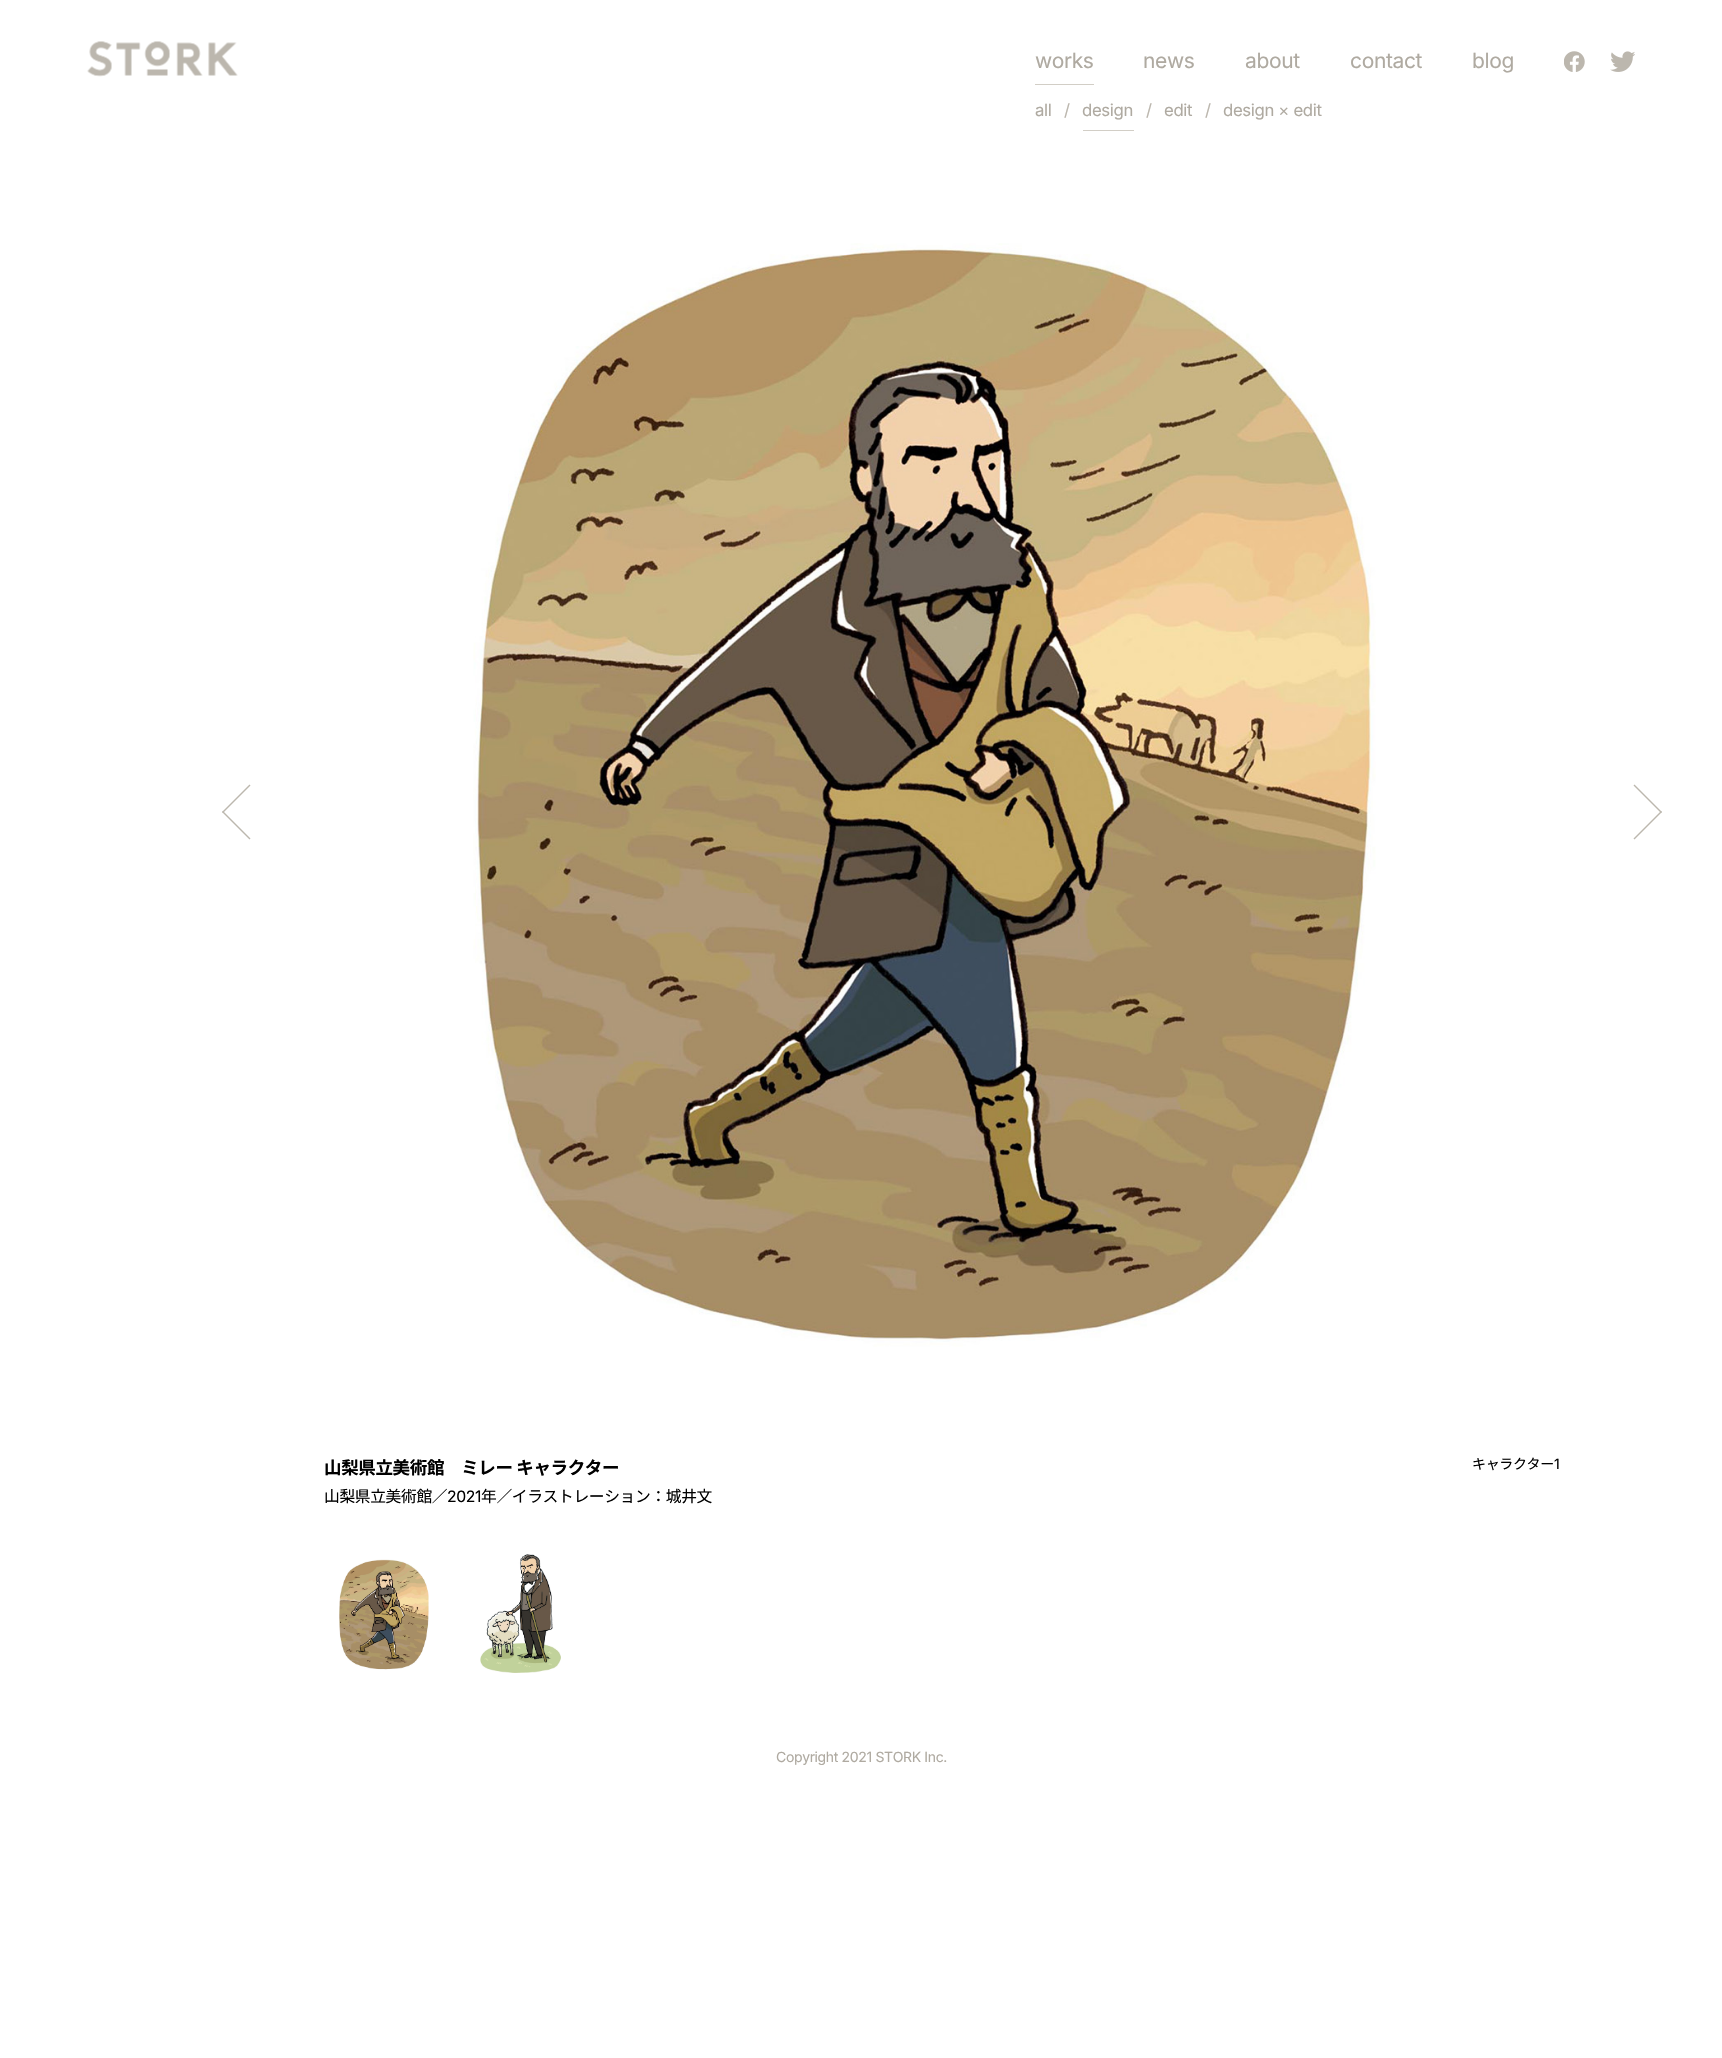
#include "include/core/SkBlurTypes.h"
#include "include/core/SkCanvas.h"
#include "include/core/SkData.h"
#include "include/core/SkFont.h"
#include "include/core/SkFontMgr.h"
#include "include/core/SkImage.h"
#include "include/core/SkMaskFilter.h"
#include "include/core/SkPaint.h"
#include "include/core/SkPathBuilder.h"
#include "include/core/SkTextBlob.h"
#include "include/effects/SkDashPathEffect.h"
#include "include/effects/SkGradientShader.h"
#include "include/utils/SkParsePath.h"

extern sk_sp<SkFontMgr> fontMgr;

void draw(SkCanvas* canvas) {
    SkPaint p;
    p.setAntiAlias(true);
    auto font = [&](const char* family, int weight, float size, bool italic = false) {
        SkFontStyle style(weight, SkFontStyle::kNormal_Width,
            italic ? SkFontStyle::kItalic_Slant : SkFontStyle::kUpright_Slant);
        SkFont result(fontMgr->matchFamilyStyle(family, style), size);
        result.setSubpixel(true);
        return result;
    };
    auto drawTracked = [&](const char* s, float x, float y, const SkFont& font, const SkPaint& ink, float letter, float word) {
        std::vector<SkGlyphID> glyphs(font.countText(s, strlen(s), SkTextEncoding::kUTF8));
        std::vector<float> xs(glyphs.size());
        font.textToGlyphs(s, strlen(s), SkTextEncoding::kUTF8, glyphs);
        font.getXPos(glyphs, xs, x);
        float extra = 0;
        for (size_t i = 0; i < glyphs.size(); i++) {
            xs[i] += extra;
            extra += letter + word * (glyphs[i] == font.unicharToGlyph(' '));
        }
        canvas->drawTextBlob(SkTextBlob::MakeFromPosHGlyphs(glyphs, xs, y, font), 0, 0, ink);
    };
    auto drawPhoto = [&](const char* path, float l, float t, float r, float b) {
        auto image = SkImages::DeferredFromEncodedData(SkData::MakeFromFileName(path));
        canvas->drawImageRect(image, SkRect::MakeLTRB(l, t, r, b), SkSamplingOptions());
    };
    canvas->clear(0xFFFFFFFF);
    drawPhoto("media/1.png", 87, 41, 238, 77);
    p.setColor(0xFFD2CEC6);
    canvas->drawRect(SkRect::MakeLTRB(1035, 84, 1094, 85), p);
    auto font1 = font("Inter", 400, 21);
    p.setColor(0xFFAFAAA1);
    drawTracked("works", 1035, 68, font1, p, -0.35f, 0);
    auto font2 = font("Inter", 400, 16.75f);
    drawTracked("all", 1035, 116, font2, p, -0.35f, 0);
    p.setColor(0xFFBCB7AE);
    drawTracked("/", 1064, 116, font2, p, -0.35f, 0);
    p.setColor(0xFFD2CEC6);
    canvas->drawRect(SkRect::MakeLTRB(1083, 130, 1134, 131), p);
    p.setColor(0xFFAFAAA1);
    drawTracked("design", 1082, 116, font2, p, -0.35f, 0);
    p.setColor(0xFFBCB7AE);
    drawTracked("/", 1146, 116, font2, p, -0.35f, 0);
    p.setColor(0xFFAFAAA1);
    drawTracked("edit", 1164, 116, font2, p, -0.35f, 0);
    p.setColor(0xFFBCB7AE);
    drawTracked("/", 1205, 116, font2, p, -0.35f, 0);
    p.setColor(0xFFAFAAA1);
    drawTracked("design × edit", 1223, 116, font2, p, -0.35f, 0);
    drawPhoto("media/2.png", 1564, 51, 1585, 72);
    drawPhoto("media/3.png", 1610, 51, 1635, 72);
    {
        const struct { const char* s; float x, y; } items[] = {
            {"news", 1143, 68},
            {"about", 1245, 68},
            {"contact", 1350, 68},
            {"blog", 1472, 68},
        };
        for (auto [s, x, y] : items) {
            drawTracked(s, x, y, font1, p, -0.35f, 0);
        }
    }
    p.setColor(0xFFBCB7AE);
    canvas->drawPath(SkPathBuilder().moveTo(249.5f, 839.5f).lineTo(222, 812).lineTo(223, 811).lineTo(250.5f, 838.5f).close().detach(), p);
    canvas->drawPath(SkPathBuilder().moveTo(223, 813).lineTo(222, 812).lineTo(249.5f, 784.5f).lineTo(250.5f, 785.5f).close().detach(), p);
    canvas->drawPath(SkPathBuilder().moveTo(1634.5f, 784.5f).lineTo(1662, 812).lineTo(1661, 813).lineTo(1633.5f, 785.5f).close().detach(), p);
    canvas->drawPath(SkPathBuilder().moveTo(1661, 811).lineTo(1662, 812).lineTo(1634.5f, 839.5f).lineTo(1633.5f, 838.5f).close().detach(), p);
    drawPhoto("media/4.png", 473, 243, 1376, 1347);
    auto font3 = font("Noto Sans JP", 700, 17.5f);
    p.setColor(0xFF000000);
    drawTracked("山梨県立美術館　ミレー キャラクター", 324, 1474, font3, p, -0.35f, 0);
    auto font4 = font("Noto Sans JP", 400, 14);
    drawTracked("キャラクター", 1472, 1469, font4, p, -0.35f, 0);
    auto font5 = font("Inter", 400, 14);
    drawTracked("1", 1554, 1469, font5, p, -0.35f, 0);
    auto font6 = font("Noto Sans JP", 400, 15.75f);
    drawTracked("山梨県立美術館／", 324, 1502, font6, p, -0.35f, 0);
    auto font7 = font("Inter", 400, 15.75f);
    drawTracked("2021", 447, 1502, font7, p, -0.35f, 0);
    drawTracked("年／イラストレーション：城井文", 481, 1502, font6, p, -0.35f, 0);
    drawPhoto("media/5.png", 339, 1559, 429, 1670);
    drawPhoto("media/6.png", 480, 1554, 561, 1673);
    p.setColor(0xFFAFAAA1);
    drawTracked("Copyright 2021 STORK Inc.", 776, 1762, font5, p, -0.35f, 0);
}
